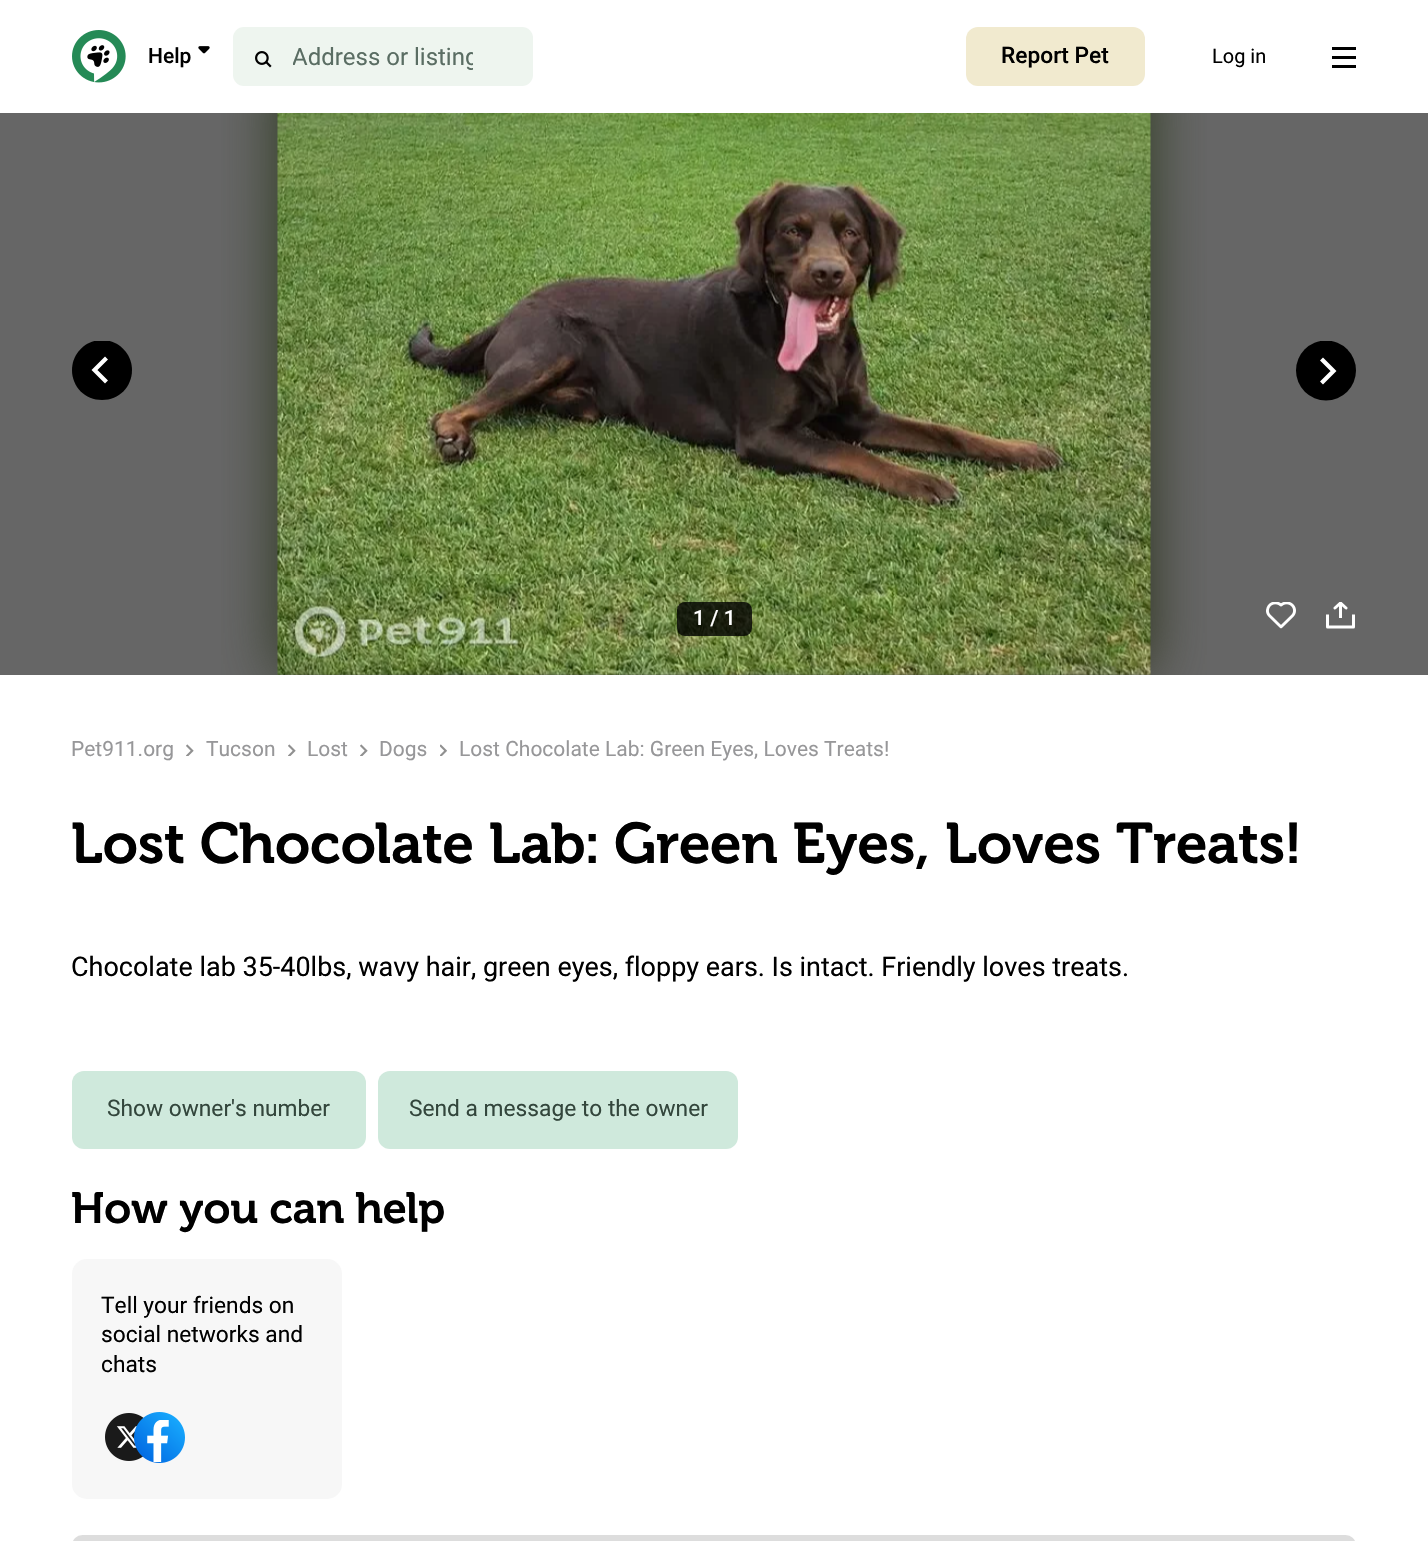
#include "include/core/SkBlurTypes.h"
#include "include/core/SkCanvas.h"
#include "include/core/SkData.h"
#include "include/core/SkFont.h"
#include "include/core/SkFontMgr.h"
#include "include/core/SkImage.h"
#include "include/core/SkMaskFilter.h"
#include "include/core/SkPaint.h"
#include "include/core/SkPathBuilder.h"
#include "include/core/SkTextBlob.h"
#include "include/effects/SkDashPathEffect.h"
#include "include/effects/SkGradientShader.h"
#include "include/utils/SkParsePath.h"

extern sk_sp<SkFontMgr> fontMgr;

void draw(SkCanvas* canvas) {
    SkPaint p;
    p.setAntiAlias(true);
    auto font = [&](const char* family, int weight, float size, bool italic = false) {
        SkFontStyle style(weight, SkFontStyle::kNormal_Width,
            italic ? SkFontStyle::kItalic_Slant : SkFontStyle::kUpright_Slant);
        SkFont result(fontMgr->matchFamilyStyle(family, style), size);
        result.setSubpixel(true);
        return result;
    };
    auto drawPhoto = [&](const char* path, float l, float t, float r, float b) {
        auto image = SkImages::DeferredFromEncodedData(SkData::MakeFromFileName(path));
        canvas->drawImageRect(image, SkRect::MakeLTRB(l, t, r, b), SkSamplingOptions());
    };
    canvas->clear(0xFFFFFFFF);
    p.setColor(0xFF666666);
    canvas->drawRect(SkRect::MakeLTRB(0, 113, 1428, 675), p);
    drawPhoto("media/1.png", 72, 30, 126, 83);
    auto font1 = font("Roboto", 500, 21);
    p.setColor(0xFF000000);
    canvas->drawString("Help", 148, 63, font1, p);
    drawPhoto("media/2.png", 198, 46, 210, 54);
    p.setColor(0xFFEEF5EF);
    canvas->drawRoundRect(SkRect::MakeLTRB(233, 27, 533, 86), 11, 11, p);
    drawPhoto("media/3.png", 255, 51, 272, 68);
    canvas->save();
    canvas->clipRect(SkRect::MakeLTRB(293, 42, 473, 71));
    auto font2 = font("Roboto", 400, 24);
    p.setColor(0xFF5A6D63);
    canvas->drawString("Address or listing", 292, 65, font2, p);
    canvas->restore();
    p.setColor(0xFFF1EACF);
    canvas->drawRoundRect(SkRect::MakeLTRB(966, 27, 1145, 86), 12, 12, p);
    auto font3 = font("Roboto", 500, 22.75f);
    p.setColor(0xFF000000);
    canvas->drawString("Report Pet", 1001, 63, font3, p);
    auto font4 = font("Roboto", 400, 20);
    canvas->drawString("Log in", 1212, 63, font4, p);
    {
        const struct { float l, t, r, b; SkColor color; } items[] = {
            {1332, 56, 1356, 59, 0xFF000000},
            {1332, 47, 1356, 50, 0xFF000000},
            {1332, 65, 1356, 68, 0xFF000000},
        };
        for (auto [l, t, r, b, color] : items) {
            p.setColor(color);
            canvas->drawRect(SkRect::MakeLTRB(l, t, r, b), p);
        }
    }
    drawPhoto("media/4.png", 221, 113, 1207, 675);
    canvas->save();
    canvas->clipRect(SkRect::MakeLTRB(72, 341, 132, 401));
    canvas->drawPath(SkPathBuilder().moveTo(102, 400).cubicTo(85, 400, 72, 387, 72, 370).cubicTo(72, 354, 85, 340, 102, 340).cubicTo(119, 340, 132, 354, 132, 370).cubicTo(132, 387, 119, 400, 102, 400).close().detach(), p);
    canvas->restore();
    p.setStyle(SkPaint::kStroke_Style);
    p.setStrokeWidth(4.2f);
    p.setColor(0xFFFFFFFF);
    canvas->drawPath(SkPathBuilder().moveTo(106.5f, 382).lineTo(94.5f, 370).lineTo(106.5f, 358).detach(), p);
    canvas->save();
    canvas->clipRect(SkRect::MakeLTRB(1296, 341, 1356, 401));
    p.setStyle(SkPaint::kFill_Style);
    p.setColor(0xFF000000);
    canvas->drawCircle(1326, 370.5f, 30, p);
    canvas->restore();
    p.setStyle(SkPaint::kStroke_Style);
    p.setColor(0xFFFFFFFF);
    canvas->drawPath(SkPathBuilder().moveTo(1321.5f, 359).lineTo(1333.5f, 371).lineTo(1321.5f, 383).detach(), p);
    drawPhoto("media/5.png", 277, 113, 1151, 675);
    p.setStyle(SkPaint::kFill_Style);
    p.setColor(0xCC000000);
    canvas->drawRoundRect(SkRect::MakeLTRB(677, 602, 752, 636), 8, 8, p);
    p.setColor(0xFFFFFFFF);
    canvas->drawString("1 / 1", 693, 625, font1, p);
    drawPhoto("media/6.png", 1266, 602, 1296, 629);
    p.setStyle(SkPaint::kStroke_Style);
    p.setStrokeWidth(3);
    p.setStrokeJoin(SkPaint::kRound_Join);
    canvas->drawPath(SkPathBuilder().moveTo(1327.5f, 614.5f).lineTo(1327.5f, 627).lineTo(1353.5f, 627).lineTo(1353.5f, 614.5f).detach(), p);
    p.setStyle(SkPaint::kFill_Style);
    canvas->drawRect(SkRect::MakeLTRB(1339, 604, 1342, 618), p);
    canvas->save();
    canvas->clipRect(SkRect::MakeLTRB(1326, 602, 1356, 629));
    p.setStyle(SkPaint::kStroke_Style);
    p.setStrokeCap(SkPaint::kRound_Cap);
    canvas->drawPath(SkPathBuilder().moveTo(1335, 608).lineTo(1340.5f, 603).lineTo(1346, 608).detach(), p);
    canvas->restore();
    auto font5 = font("Roboto", 400, 21);
    p.setStyle(SkPaint::kFill_Style);
    p.setColor(0xFF979799);
    canvas->drawString("Pet911.org", 71, 756, font5, p);
    drawPhoto("media/7.png", 186, 744, 194, 756);
    canvas->drawString("Tucson", 206, 756, font5, p);
    drawPhoto("media/7.png", 288, 744, 296, 756);
    canvas->drawString("Lost", 307, 756, font5, p);
    drawPhoto("media/7.png", 360, 744, 368, 756);
    canvas->drawString("Dogs", 379, 756, font5, p);
    drawPhoto("media/8.png", 440, 744, 447, 756);
    canvas->drawString("Lost Chocolate Lab: Green Eyes, Loves Treats!", 459, 756, font5, p);
    auto font6 = font("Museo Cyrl", 600, 57);
    p.setColor(0xFF000000);
    canvas->drawString("Lost Chocolate Lab: Green Eyes, Loves Treats!", 71, 863, font6, p);
    auto font7 = font("Roboto", 400, 27);
    canvas->drawString("Chocolate lab 35-40lbs, wavy hair, green eyes, floppy ears. Is intact. Friendly loves treats.", 71, 976, font7, p);
    p.setColor(0xFFCFE9DC);
    canvas->drawRoundRect(SkRect::MakeLTRB(72, 1071, 366, 1149), 12, 12, p);
    auto font8 = font("Roboto", 400, 22.75f);
    p.setColor(0xFF33463C);
    canvas->drawString("Show owner's number", 107, 1116, font8, p);
    p.setColor(0xFFCFE9DC);
    canvas->drawRoundRect(SkRect::MakeLTRB(378, 1071, 738, 1149), 12, 12, p);
    p.setColor(0xFF33463C);
    canvas->drawString("Send a message to the owner", 409, 1116, font8, p);
    auto font9 = font("Museo Cyrl", 600, 43.5f);
    p.setColor(0xFF000000);
    canvas->drawString("How you can help", 71, 1223, font9, p);
    p.setColor(0xFFF7F7F7);
    canvas->drawRoundRect(SkRect::MakeLTRB(72, 1259, 342, 1499), 15, 15, p);
    p.setColor(0xFF000000);
    {
        const struct { const char* s; float x, y; } items[] = {
            {"Tell your friends on", 101, 1313},
            {"social networks and", 101, 1342},
            {"chats", 101, 1372},
        };
        for (auto [s, x, y] : items) {
            canvas->drawString(s, x, y, font8, p);
        }
    }
    drawPhoto("media/9.png", 105, 1413, 146, 1461);
    drawPhoto("media/10.png", 134, 1412, 185, 1463);
    p.setColor(0xFFDDDDDD);
    canvas->drawRoundRect(SkRect::MakeLTRB(72, 1535, 1356, 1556), 15, 15, p);
}
